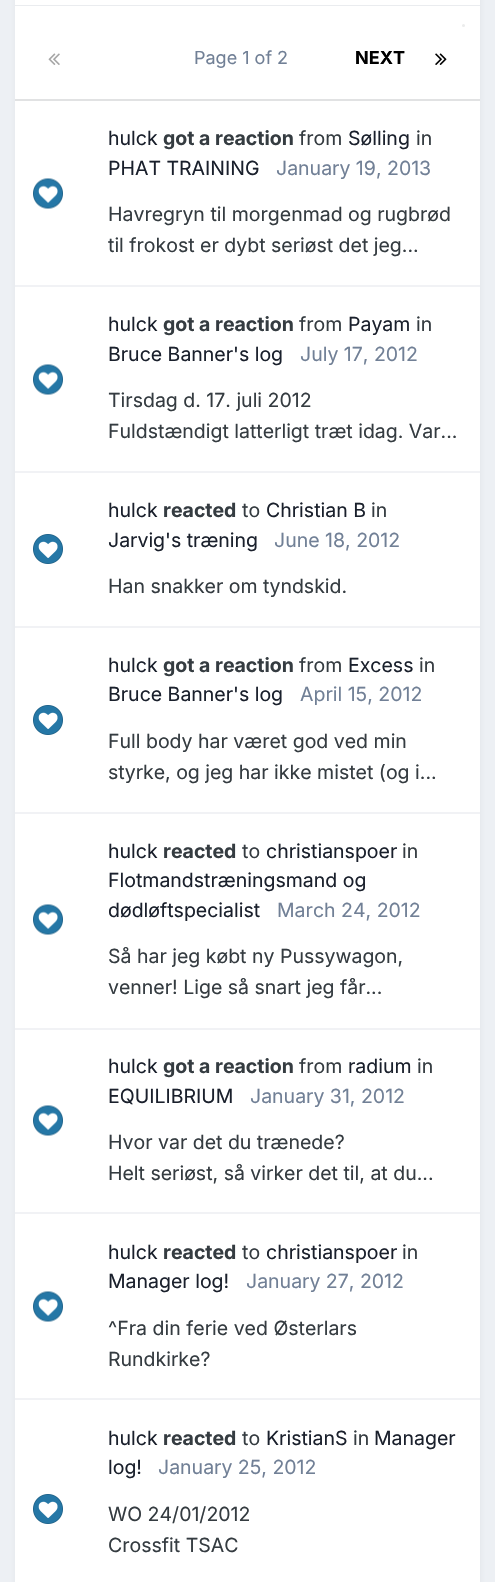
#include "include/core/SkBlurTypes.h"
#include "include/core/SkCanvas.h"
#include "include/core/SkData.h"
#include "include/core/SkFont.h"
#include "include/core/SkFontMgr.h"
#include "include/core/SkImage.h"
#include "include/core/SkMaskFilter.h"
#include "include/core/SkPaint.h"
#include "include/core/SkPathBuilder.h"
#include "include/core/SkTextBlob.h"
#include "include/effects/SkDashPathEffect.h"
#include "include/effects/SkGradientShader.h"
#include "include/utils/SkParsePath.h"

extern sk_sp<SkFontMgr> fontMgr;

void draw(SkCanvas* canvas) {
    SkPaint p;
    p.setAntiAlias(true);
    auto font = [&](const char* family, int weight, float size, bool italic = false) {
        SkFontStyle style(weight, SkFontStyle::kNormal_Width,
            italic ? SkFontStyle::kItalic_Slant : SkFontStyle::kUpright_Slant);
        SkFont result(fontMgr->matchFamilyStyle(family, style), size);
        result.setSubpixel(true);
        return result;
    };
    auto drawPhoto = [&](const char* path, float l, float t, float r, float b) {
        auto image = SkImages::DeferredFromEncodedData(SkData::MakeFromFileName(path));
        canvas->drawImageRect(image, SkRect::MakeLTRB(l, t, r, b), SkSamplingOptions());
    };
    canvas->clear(0xFFEDF0F4);
    p.setColor(0x1A2D3748);
    p.setMaskFilter(SkMaskFilter::MakeBlur(kNormal_SkBlurStyle, 3));
    canvas->drawRoundRect(SkRect::MakeLTRB(17, -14, 479, 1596), 5, 5, p);
    p.setMaskFilter(nullptr);
    {
        const struct { float l, t, r, b; SkColor color; } items[] = {
            {15, 0, 480, 5, 0xFFFFFFFF},
            {15, 5, 480, 6, 0xFFEAECEF},
            {15, 6, 480, 1582, 0xFFFFFFFF},
            {15, 99, 480, 101, 0xFFE1E2E3},
        };
        for (auto [l, t, r, b, color] : items) {
            p.setColor(color);
            canvas->drawRect(SkRect::MakeLTRB(l, t, r, b), p);
        }
    }
    p.setColor(0xFFEBECEC);
    canvas->drawCircle(463.5f, 25.5f, 1.5f, p);
    drawPhoto("media/1.png", 48, 53, 60, 65);
    auto font1 = font("Inter", 400, 18);
    p.setColor(0xFF718096);
    canvas->drawString("Page 1 of 2", 194, 64, font1, p);
    auto font2 = font("Inter", 700, 18);
    p.setColor(0xFF000000);
    canvas->drawString("NEXT", 355, 64, font2, p);
    drawPhoto("media/2.png", 435, 53, 447, 65);
    p.setColor(0xFFF1F2F5);
    canvas->drawRect(SkRect::MakeLTRB(15, 285, 480, 287), p);
    drawPhoto("media/3.png", 33, 178, 63, 209);
    auto font3 = font("Inter", 400, 19.5f);
    p.setColor(0xFF1A202C);
    canvas->drawString("hulck", 108, 145, font3, p);
    auto font4 = font("Inter", 700, 19.5f);
    p.setColor(0xFF353C41);
    canvas->drawString("got a reaction", 163, 145, font4, p);
    canvas->drawString("from", 299, 145, font3, p);
    p.setColor(0xFF1A202C);
    canvas->drawString("Sølling", 348, 145, font3, p);
    p.setColor(0xFF353C41);
    canvas->drawString("in", 416, 145, font3, p);
    p.setColor(0xFF1A202C);
    canvas->drawString("PHAT TRAINING", 108, 175, font3, p);
    p.setColor(0xFF718096);
    canvas->drawString("January 19, 2013", 276, 175, font3, p);
    p.setColor(0xFF353C41);
    canvas->drawString("Havregryn til morgenmad og rugbrød", 108, 221, font3, p);
    canvas->drawString("til frokost er dybt seriøst det jeg...", 108, 252, font3, p);
    p.setColor(0xFFF1F2F5);
    canvas->drawRect(SkRect::MakeLTRB(15, 471, 480, 473), p);
    drawPhoto("media/3.png", 33, 364, 63, 395);
    p.setColor(0xFF1A202C);
    canvas->drawString("hulck", 108, 331, font3, p);
    p.setColor(0xFF353C41);
    canvas->drawString("got a reaction", 163, 331, font4, p);
    canvas->drawString("from", 299, 331, font3, p);
    p.setColor(0xFF1A202C);
    canvas->drawString("Payam", 348, 331, font3, p);
    p.setColor(0xFF353C41);
    canvas->drawString("in", 416, 331, font3, p);
    p.setColor(0xFF1A202C);
    canvas->drawString("Bruce Banner's log", 108, 361, font3, p);
    p.setColor(0xFF718096);
    canvas->drawString("July 17, 2012", 300, 361, font3, p);
    p.setColor(0xFF353C41);
    canvas->drawString("Tirsdag d. 17. juli 2012", 108, 407, font3, p);
    canvas->drawString("Fuldstændigt latterligt træt idag. Var...", 108, 438, font3, p);
    p.setColor(0xFFF1F2F5);
    canvas->drawRect(SkRect::MakeLTRB(15, 626, 480, 628), p);
    drawPhoto("media/4.png", 33, 534, 63, 564);
    p.setColor(0xFF1A202C);
    canvas->drawString("hulck", 108, 517, font3, p);
    p.setColor(0xFF353C41);
    canvas->drawString("reacted", 163, 517, font4, p);
    canvas->drawString("to", 242, 517, font3, p);
    p.setColor(0xFF1A202C);
    canvas->drawString("Christian B", 266, 517, font3, p);
    p.setColor(0xFF353C41);
    canvas->drawString("in", 371, 517, font3, p);
    p.setColor(0xFF1A202C);
    canvas->drawString("Jarvig's træning", 108, 547, font3, p);
    p.setColor(0xFF718096);
    canvas->drawString("June 18, 2012", 274, 547, font3, p);
    p.setColor(0xFF353C41);
    canvas->drawString("Han snakker om tyndskid.", 108, 593, font3, p);
    p.setColor(0xFFF1F2F5);
    canvas->drawRect(SkRect::MakeLTRB(15, 812, 480, 814), p);
    drawPhoto("media/4.png", 33, 705, 63, 735);
    p.setColor(0xFF1A202C);
    canvas->drawString("hulck", 108, 672, font3, p);
    p.setColor(0xFF353C41);
    canvas->drawString("got a reaction", 163, 672, font4, p);
    canvas->drawString("from", 299, 672, font3, p);
    p.setColor(0xFF1A202C);
    canvas->drawString("Excess", 348, 672, font3, p);
    p.setColor(0xFF353C41);
    canvas->drawString("in", 419, 672, font3, p);
    p.setColor(0xFF1A202C);
    canvas->drawString("Bruce Banner's log", 108, 701, font3, p);
    p.setColor(0xFF718096);
    canvas->drawString("April 15, 2012", 300, 701, font3, p);
    p.setColor(0xFF353C41);
    canvas->drawString("Full body har været god ved min", 108, 748, font3, p);
    canvas->drawString("styrke, og jeg har ikke mistet (og i...", 108, 779, font3, p);
    p.setColor(0xFFF1F2F5);
    canvas->drawRect(SkRect::MakeLTRB(15, 1028, 480, 1030), p);
    drawPhoto("media/3.png", 33, 904, 63, 935);
    p.setColor(0xFF1A202C);
    canvas->drawString("hulck", 108, 858, font3, p);
    p.setColor(0xFF353C41);
    canvas->drawString("reacted", 163, 858, font4, p);
    canvas->drawString("to", 242, 858, font3, p);
    p.setColor(0xFF1A202C);
    canvas->drawString("christianspoer", 266, 858, font3, p);
    p.setColor(0xFF353C41);
    canvas->drawString("in", 402, 858, font3, p);
    p.setColor(0xFF1A202C);
    canvas->drawString("Flotmandstræningsmand og", 108, 887, font3, p);
    canvas->drawString("dødløftspecialist", 108, 917, font3, p);
    p.setColor(0xFF718096);
    canvas->drawString("March 24, 2012", 277, 917, font3, p);
    p.setColor(0xFF353C41);
    canvas->drawString("Så har jeg købt ny Pussywagon,", 108, 963, font3, p);
    canvas->drawString("venner! Lige så snart jeg får...", 108, 994, font3, p);
    p.setColor(0xFFF1F2F5);
    canvas->drawRect(SkRect::MakeLTRB(15, 1212, 480, 1214), p);
    drawPhoto("media/3.png", 33, 1105, 63, 1136);
    p.setColor(0xFF1A202C);
    canvas->drawString("hulck", 108, 1073, font3, p);
    p.setColor(0xFF353C41);
    canvas->drawString("got a reaction", 163, 1073, font4, p);
    canvas->drawString("from", 299, 1073, font3, p);
    p.setColor(0xFF1A202C);
    canvas->drawString("radium", 348, 1073, font3, p);
    p.setColor(0xFF353C41);
    canvas->drawString("in", 417, 1073, font3, p);
    p.setColor(0xFF1A202C);
    canvas->drawString("EQUILIBRIUM", 108, 1103, font3, p);
    p.setColor(0xFF718096);
    canvas->drawString("January 31, 2012", 250, 1103, font3, p);
    p.setColor(0xFF353C41);
    canvas->drawString("Hvor var det du trænede?", 108, 1149, font3, p);
    canvas->drawString("Helt seriøst, så virker det til, at du...", 108, 1180, font3, p);
    p.setColor(0xFFF1F2F5);
    canvas->drawRect(SkRect::MakeLTRB(15, 1398, 480, 1400), p);
    drawPhoto("media/3.png", 33, 1291, 63, 1322);
    p.setColor(0xFF1A202C);
    canvas->drawString("hulck", 108, 1259, font3, p);
    p.setColor(0xFF353C41);
    canvas->drawString("reacted", 163, 1259, font4, p);
    canvas->drawString("to", 242, 1259, font3, p);
    p.setColor(0xFF1A202C);
    canvas->drawString("christianspoer", 266, 1259, font3, p);
    p.setColor(0xFF353C41);
    canvas->drawString("in", 402, 1259, font3, p);
    p.setColor(0xFF1A202C);
    canvas->drawString("Manager log!", 108, 1288, font3, p);
    p.setColor(0xFF718096);
    canvas->drawString("January 27, 2012", 246, 1288, font3, p);
    p.setColor(0xFF353C41);
    canvas->drawString("^Fra din ferie ved Østerlars", 108, 1335, font3, p);
    canvas->drawString("Rundkirke?", 108, 1366, font3, p);
    drawPhoto("media/4.png", 33, 1494, 63, 1524);
    p.setColor(0xFF1A202C);
    canvas->drawString("hulck", 108, 1445, font3, p);
    p.setColor(0xFF353C41);
    canvas->drawString("reacted", 163, 1445, font4, p);
    canvas->drawString("to", 242, 1445, font3, p);
    p.setColor(0xFF1A202C);
    canvas->drawString("KristianS", 266, 1445, font3, p);
    p.setColor(0xFF353C41);
    canvas->drawString("in", 353, 1445, font3, p);
    p.setColor(0xFF1A202C);
    canvas->drawString("Manager", 374, 1445, font3, p);
    canvas->drawString("log!", 108, 1474, font3, p);
    p.setColor(0xFF718096);
    canvas->drawString("January 25, 2012", 158, 1474, font3, p);
    p.setColor(0xFF353C41);
    canvas->drawString("WO 24/01/2012", 108, 1521, font3, p);
    canvas->drawString("Crossfit TSAC", 108, 1552, font3, p);
}
